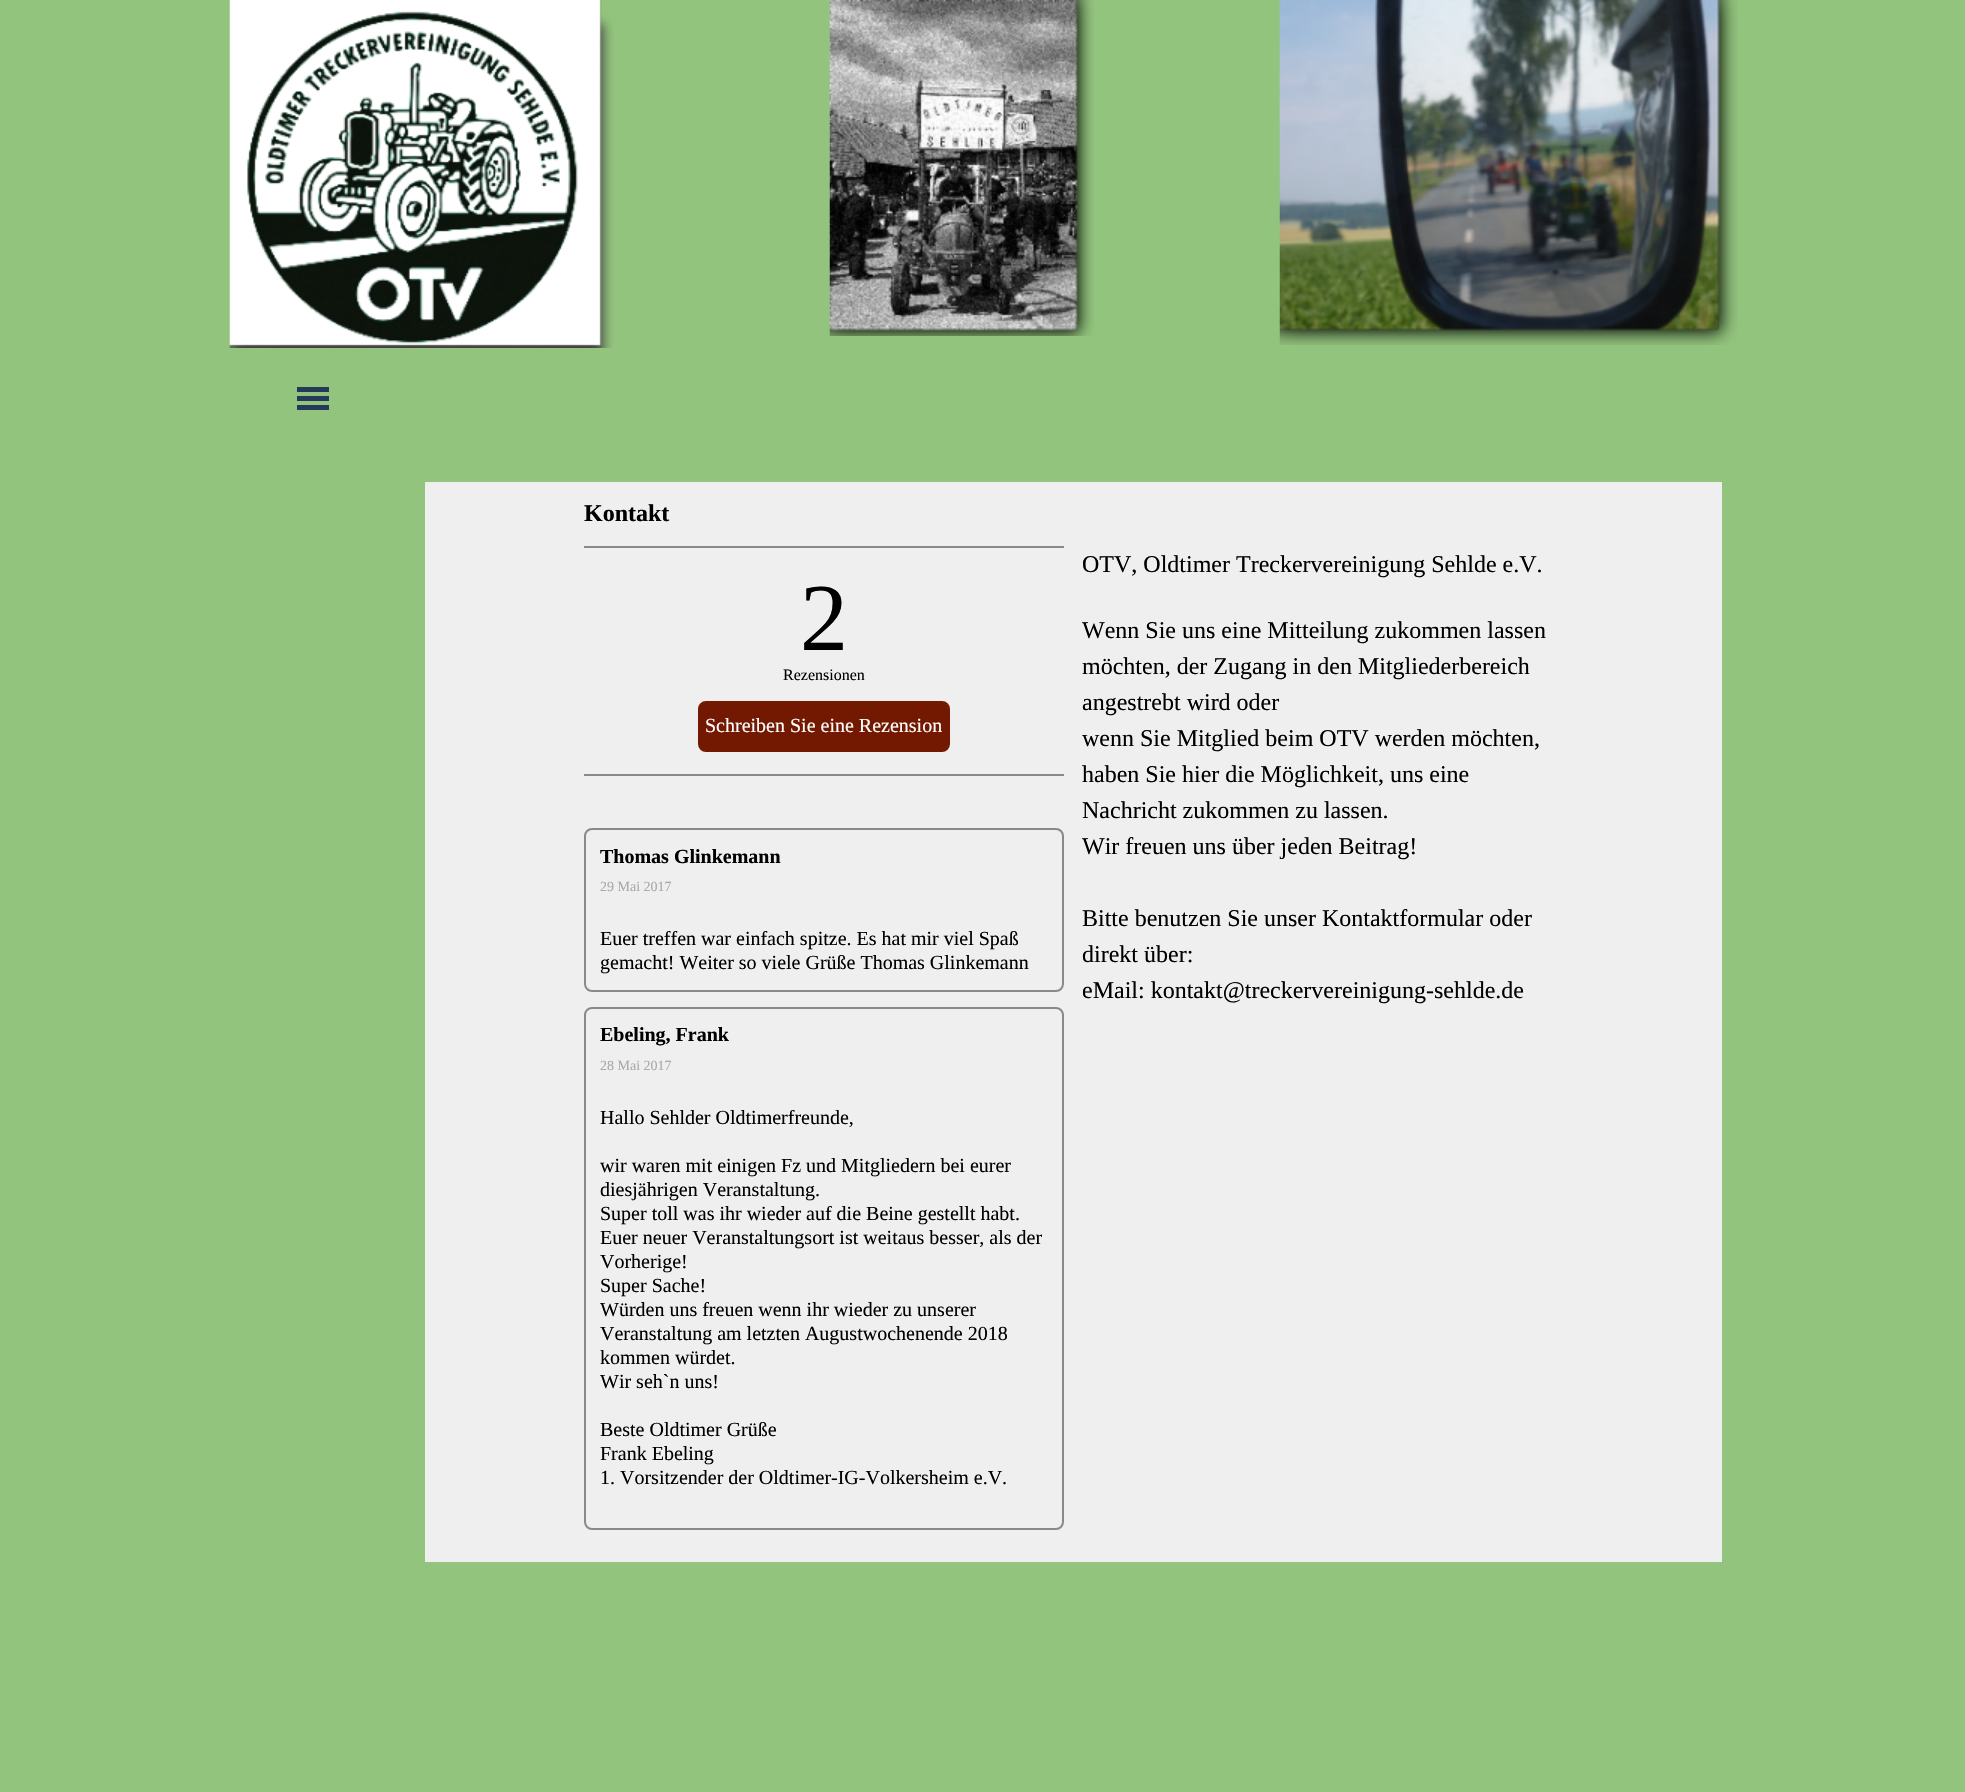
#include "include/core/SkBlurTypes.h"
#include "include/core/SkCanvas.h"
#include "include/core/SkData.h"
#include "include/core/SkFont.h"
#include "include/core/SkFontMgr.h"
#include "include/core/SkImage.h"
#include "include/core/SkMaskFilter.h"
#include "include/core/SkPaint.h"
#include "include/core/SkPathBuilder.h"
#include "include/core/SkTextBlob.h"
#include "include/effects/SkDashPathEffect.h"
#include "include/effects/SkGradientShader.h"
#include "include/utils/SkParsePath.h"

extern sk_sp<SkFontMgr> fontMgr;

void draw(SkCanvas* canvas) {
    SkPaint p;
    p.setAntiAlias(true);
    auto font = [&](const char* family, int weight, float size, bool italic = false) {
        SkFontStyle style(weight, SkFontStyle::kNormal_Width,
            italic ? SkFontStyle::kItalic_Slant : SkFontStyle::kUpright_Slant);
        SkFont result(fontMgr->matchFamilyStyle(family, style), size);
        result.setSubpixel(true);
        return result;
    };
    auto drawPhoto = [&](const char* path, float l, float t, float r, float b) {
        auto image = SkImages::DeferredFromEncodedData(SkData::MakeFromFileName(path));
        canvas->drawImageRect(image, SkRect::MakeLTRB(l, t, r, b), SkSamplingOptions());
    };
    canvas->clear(0xFF93C47D);
    drawPhoto("media/1.png", 229, 0, 614, 348);
    drawPhoto("media/2.png", 829, 0, 1094, 336);
    drawPhoto("media/3.png", 1279, 0, 1738, 345);
    {
        const struct { float l, t, r, b; SkColor color; } items[] = {
            {297, 387, 329, 392, 0xFF253A58},
            {297, 396, 329, 401, 0xFF253A58},
            {297, 405, 329, 410, 0xFF253A58},
            {425, 482, 1722, 1562, 0xFFEFEFEF},
        };
        for (auto [l, t, r, b, color] : items) {
            p.setColor(color);
            canvas->drawRect(SkRect::MakeLTRB(l, t, r, b), p);
        }
    }
    auto font1 = font("Liberation Serif", 700, 24);
    p.setColor(0xFF000000);
    canvas->drawString("Kontakt", 584, 521, font1, p);
    p.setColor(0xFF898989);
    canvas->drawRect(SkRect::MakeLTRB(584, 546, 1064, 548), p);
    canvas->drawRect(SkRect::MakeLTRB(584, 774, 1064, 776), p);
    auto font2 = font("Liberation Serif", 400, 96);
    p.setColor(0xFF000000);
    canvas->drawString("2", 800, 650, font2, p);
    auto font3 = font("Liberation Serif", 400, 16);
    canvas->drawString("Rezensionen", 783, 680, font3, p);
    p.setColor(0xFF731901);
    canvas->drawRoundRect(SkRect::MakeLTRB(699, 702, 949, 751), 7, 7, p);
    p.setStyle(SkPaint::kStroke_Style);
    p.setStrokeWidth(2);
    canvas->drawRoundRect(SkRect::MakeLTRB(699, 702, 949, 751), 7, 7, p);
    auto font4 = font("Liberation Serif", 400, 20);
    p.setStyle(SkPaint::kFill_Style);
    p.setColor(0xFFFFFFFF);
    canvas->drawString("Schreiben Sie eine Rezension", 705, 732, font4, p);
    p.setStyle(SkPaint::kStroke_Style);
    p.setColor(0xFF898989);
    canvas->drawRoundRect(SkRect::MakeLTRB(585, 829, 1063, 991), 7, 7, p);
    auto font5 = font("Liberation Serif", 700, 20);
    p.setStyle(SkPaint::kFill_Style);
    p.setColor(0xFF000000);
    canvas->drawString("Thomas Glinkemann", 600, 863, font5, p);
    auto font6 = font("Liberation Serif", 400, 14);
    p.setColor(0xFFA9A9A9);
    canvas->drawString("29 Mai 2017", 600, 891, font6, p);
    p.setColor(0xFF000000);
    canvas->drawString("Euer treffen war einfach spitze. Es hat mir viel Spaß", 600, 945, font4, p);
    canvas->drawString("gemacht! Weiter so viele Grüße Thomas Glinkemann", 600, 969, font4, p);
    p.setStyle(SkPaint::kStroke_Style);
    p.setColor(0xFF898989);
    canvas->drawRoundRect(SkRect::MakeLTRB(585, 1008, 1063, 1529), 7, 7, p);
    p.setStyle(SkPaint::kFill_Style);
    p.setColor(0xFF000000);
    canvas->drawString("Ebeling, Frank", 600, 1041, font5, p);
    p.setColor(0xFFA9A9A9);
    canvas->drawString("28 Mai 2017", 600, 1070, font6, p);
    p.setColor(0xFF000000);
    {
        const struct { const char* s; float x, y; } items[] = {
            {"Hallo Sehlder Oldtimerfreunde,", 600, 1124},
            {"wir waren mit einigen Fz und Mitgliedern bei eurer", 600, 1172},
            {"diesjährigen Veranstaltung.", 600, 1196},
            {"Super toll was ihr wieder auf die Beine gestellt habt.", 600, 1220},
            {"Euer neuer Veranstaltungsort ist weitaus besser, als der", 600, 1244},
            {"Vorherige!", 600, 1268},
            {"Super Sache!", 600, 1292},
            {"Würden uns freuen wenn ihr wieder zu unserer", 600, 1316},
            {"Veranstaltung am letzten Augustwochenende 2018", 600, 1340},
            {"kommen würdet.", 600, 1364},
            {"Wir seh`n uns!", 600, 1388},
            {"Beste Oldtimer Grüße", 600, 1436},
            {"Frank Ebeling", 600, 1460},
            {"1. Vorsitzender der Oldtimer-IG-Volkersheim e.V.", 600, 1484},
        };
        for (auto [s, x, y] : items) {
            canvas->drawString(s, x, y, font4, p);
        }
    }
    auto font7 = font("Liberation Serif", 400, 24);
    {
        const struct { const char* s; float x, y; } items[] = {
            {"OTV, Oldtimer Treckervereinigung Sehlde e.V.", 1082, 572},
            {"Wenn Sie uns eine Mitteilung zukommen lassen", 1082, 638},
            {"möchten, der Zugang in den Mitgliederbereich", 1082, 674},
            {"angestrebt wird oder", 1082, 710},
            {"wenn Sie Mitglied beim OTV werden möchten,", 1082, 746},
            {"haben Sie hier die Möglichkeit, uns eine", 1082, 782},
            {"Nachricht zukommen zu lassen.", 1082, 818},
            {"Wir freuen uns über jeden Beitrag!", 1082, 854},
            {"Bitte benutzen Sie unser Kontaktformular oder", 1082, 926},
            {"direkt über:", 1082, 962},
            {"eMail: kontakt@treckervereinigung-sehlde.de", 1082, 998},
        };
        for (auto [s, x, y] : items) {
            canvas->drawString(s, x, y, font7, p);
        }
    }
}
